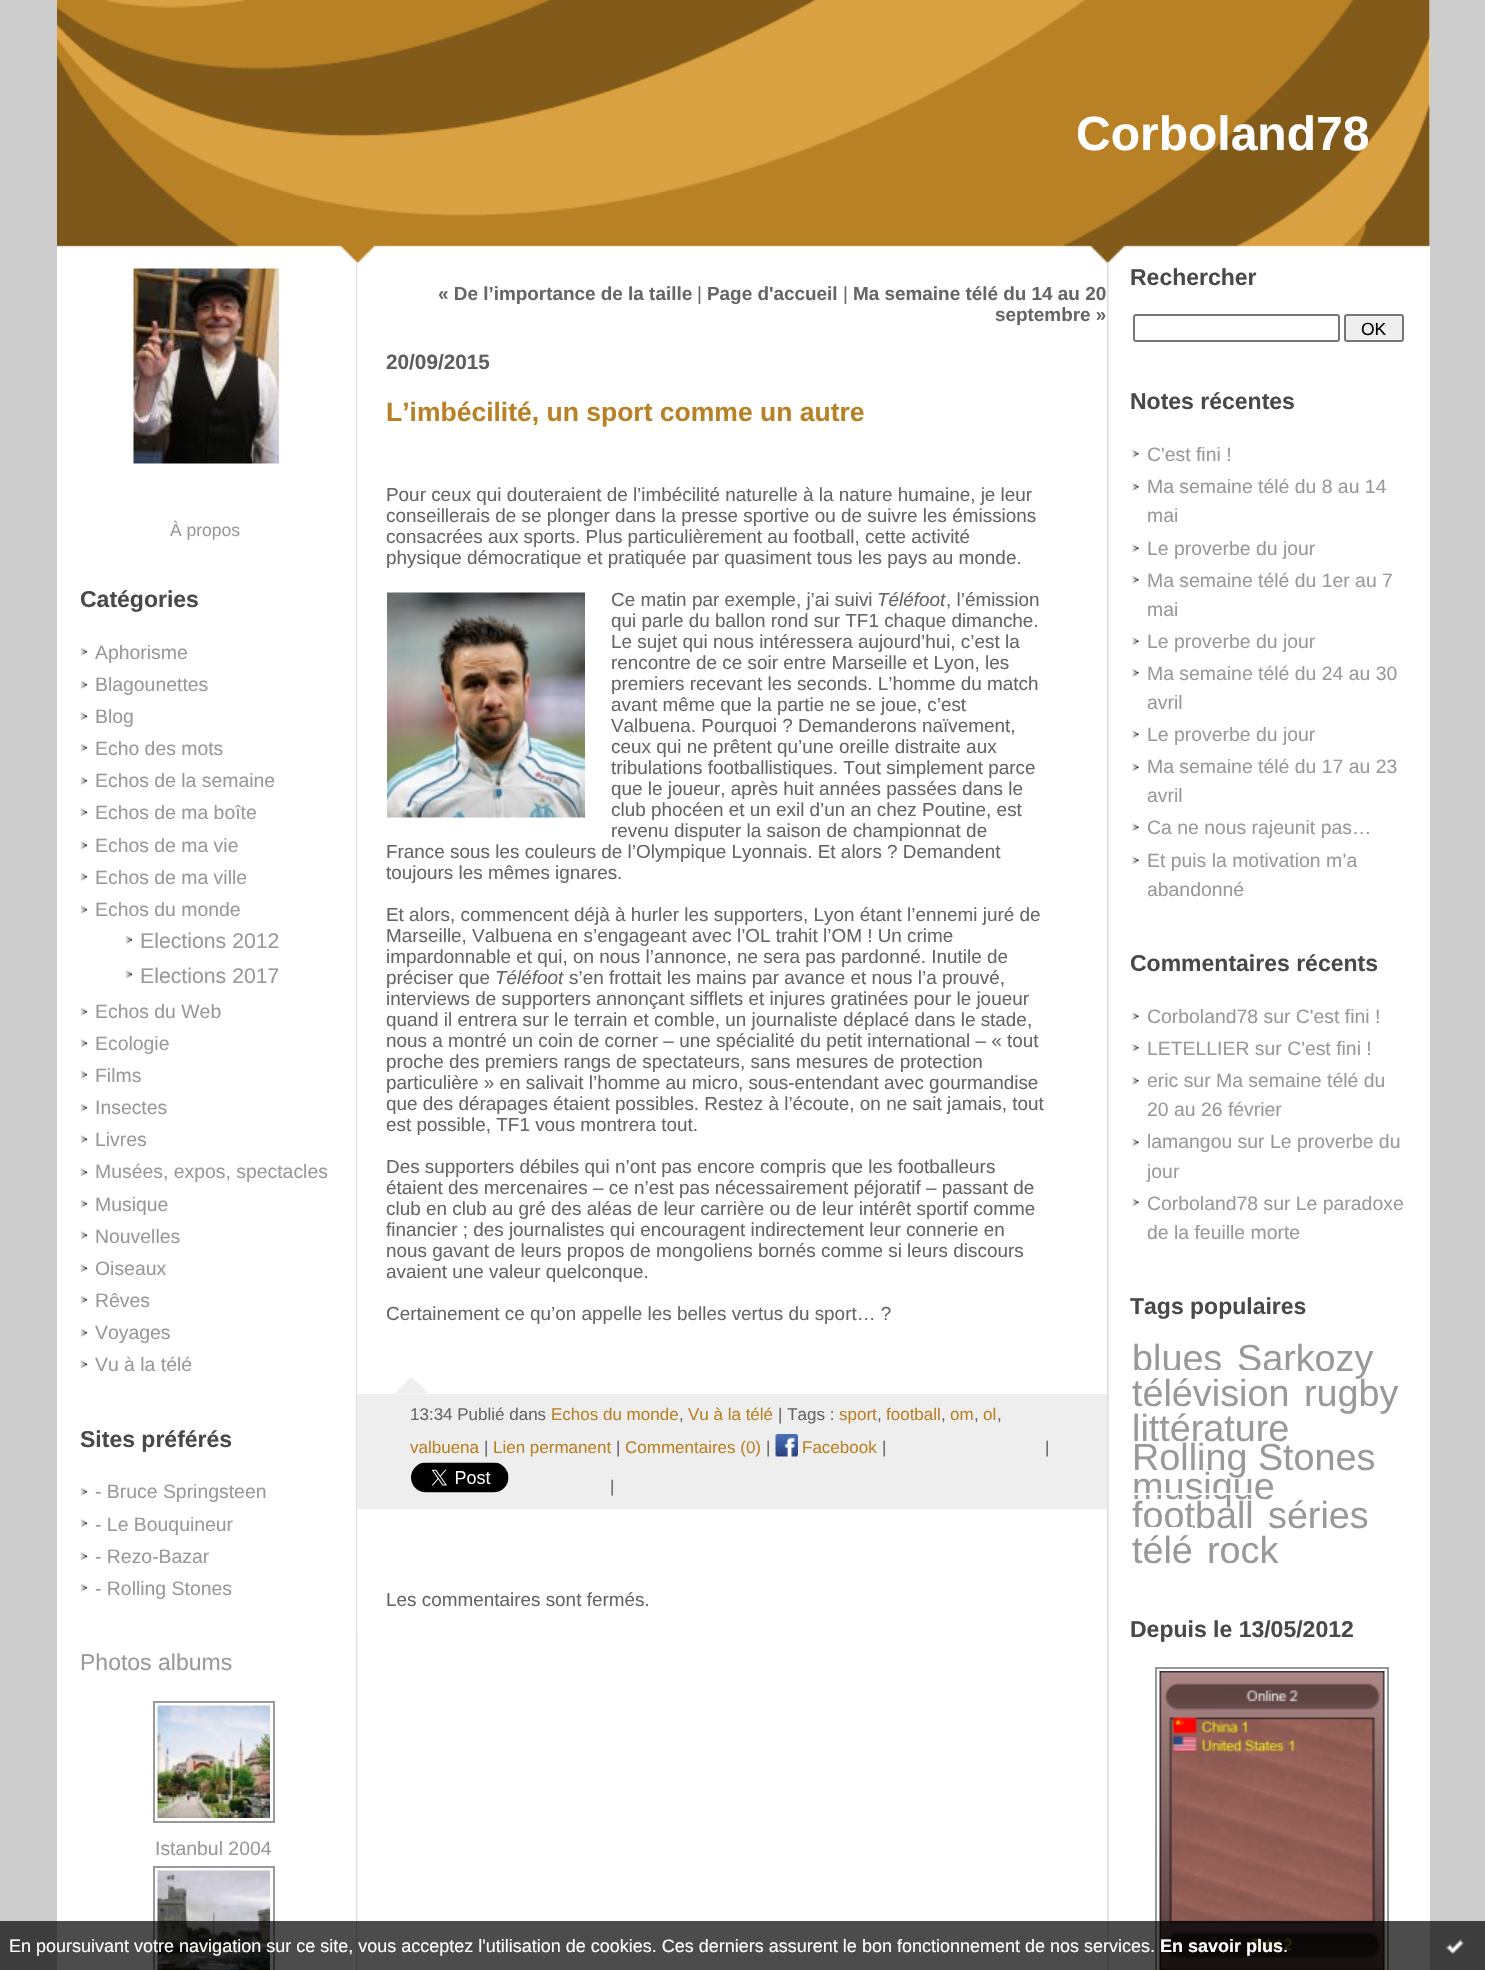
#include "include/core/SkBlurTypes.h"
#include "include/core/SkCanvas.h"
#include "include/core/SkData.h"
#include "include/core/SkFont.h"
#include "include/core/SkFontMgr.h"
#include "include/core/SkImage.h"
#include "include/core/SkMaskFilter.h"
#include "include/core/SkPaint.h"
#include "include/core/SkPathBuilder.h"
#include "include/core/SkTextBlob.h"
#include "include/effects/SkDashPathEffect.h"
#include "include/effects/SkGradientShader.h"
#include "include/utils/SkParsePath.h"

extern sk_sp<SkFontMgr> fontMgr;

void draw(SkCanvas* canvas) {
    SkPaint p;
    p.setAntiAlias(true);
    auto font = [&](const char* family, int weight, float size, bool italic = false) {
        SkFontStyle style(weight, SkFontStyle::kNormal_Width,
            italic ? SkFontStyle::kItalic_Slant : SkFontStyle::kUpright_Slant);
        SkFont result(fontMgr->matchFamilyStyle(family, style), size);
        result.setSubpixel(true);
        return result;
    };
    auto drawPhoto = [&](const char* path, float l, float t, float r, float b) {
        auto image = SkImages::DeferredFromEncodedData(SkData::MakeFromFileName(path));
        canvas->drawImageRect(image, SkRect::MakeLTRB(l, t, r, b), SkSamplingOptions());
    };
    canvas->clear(0xFFCCCCCC);
    p.setColor(0xFFFFFFFF);
    canvas->drawRect(SkRect::MakeLTRB(1109, 263, 1430, 1970), p);
    drawPhoto("media/1.png", 356, 263, 1109, 1970);
    canvas->drawRect(SkRect::MakeLTRB(57, 0, 1430, 263), p);
    drawPhoto("media/2.png", 57, 0, 1430, 263);
    auto font1 = font("Liberation Sans", 700, 48);
    canvas->drawString("Corboland78", 1076, 150, font1, p);
    canvas->drawRect(SkRect::MakeLTRB(57, 263, 356, 1970), p);
    drawPhoto("media/3.png", 133, 268, 279, 464);
    auto font2 = font("Liberation Sans", 400, 17.5f);
    p.setColor(0xFF999999);
    canvas->drawString("À propos", 170, 536, font2, p);
    auto font3 = font("Liberation Sans", 700, 23);
    p.setColor(0xFF494949);
    canvas->drawString("Catégories", 80, 607, font3, p);
    drawPhoto("media/4.png", 81, 648, 87, 656);
    auto font4 = font("Liberation Sans", 400, 19.4f);
    p.setColor(0xFF999999);
    canvas->drawString("Aphorisme", 95, 659, font4, p);
    drawPhoto("media/4.png", 81, 681, 87, 689);
    canvas->drawString("Blagounettes", 95, 691, font4, p);
    drawPhoto("media/5.png", 81, 712, 87, 720);
    canvas->drawString("Blog", 95, 723, font4, p);
    drawPhoto("media/4.png", 81, 744, 87, 752);
    canvas->drawString("Echo des mots", 95, 755, font4, p);
    drawPhoto("media/4.png", 81, 777, 87, 785);
    canvas->drawString("Echos de la semaine", 95, 787, font4, p);
    drawPhoto("media/5.png", 81, 808, 87, 816);
    canvas->drawString("Echos de ma boîte", 95, 819, font4, p);
    drawPhoto("media/5.png", 81, 841, 87, 849);
    canvas->drawString("Echos de ma vie", 95, 852, font4, p);
    drawPhoto("media/4.png", 81, 873, 87, 881);
    canvas->drawString("Echos de ma ville", 95, 884, font4, p);
    drawPhoto("media/4.png", 81, 906, 87, 914);
    canvas->drawString("Echos du monde", 95, 916, font4, p);
    drawPhoto("media/4.png", 126, 936, 132, 944);
    auto font5 = font("Liberation Sans", 400, 21.25f);
    canvas->drawString("Elections 2012", 140, 948, font5, p);
    drawPhoto("media/5.png", 126, 970, 132, 978);
    canvas->drawString("Elections 2017", 140, 983, font5, p);
    drawPhoto("media/4.png", 81, 1008, 87, 1016);
    canvas->drawString("Echos du Web", 95, 1018, font4, p);
    drawPhoto("media/5.png", 81, 1039, 87, 1047);
    canvas->drawString("Ecologie", 95, 1050, font4, p);
    drawPhoto("media/4.png", 81, 1071, 87, 1079);
    canvas->drawString("Films", 95, 1082, font4, p);
    drawPhoto("media/4.png", 81, 1104, 87, 1112);
    canvas->drawString("Insectes", 95, 1114, font4, p);
    drawPhoto("media/5.png", 81, 1135, 87, 1143);
    canvas->drawString("Livres", 95, 1146, font4, p);
    drawPhoto("media/5.png", 81, 1168, 87, 1176);
    canvas->drawString("Musées, expos, spectacles", 95, 1178, font4, p);
    drawPhoto("media/4.png", 81, 1200, 87, 1208);
    canvas->drawString("Musique", 95, 1211, font4, p);
    drawPhoto("media/5.png", 81, 1231, 87, 1239);
    canvas->drawString("Nouvelles", 95, 1243, font4, p);
    drawPhoto("media/5.png", 81, 1264, 87, 1272);
    canvas->drawString("Oiseaux", 95, 1275, font4, p);
    drawPhoto("media/4.png", 81, 1296, 87, 1304);
    canvas->drawString("Rêves", 95, 1307, font4, p);
    drawPhoto("media/4.png", 81, 1329, 87, 1337);
    canvas->drawString("Voyages", 95, 1339, font4, p);
    drawPhoto("media/5.png", 81, 1360, 87, 1368);
    canvas->drawString("Vu à la télé", 95, 1371, font4, p);
    p.setColor(0xFF494949);
    canvas->drawString("Sites préférés", 80, 1447, font3, p);
    drawPhoto("media/4.png", 81, 1488, 87, 1496);
    p.setColor(0xFF999999);
    canvas->drawString("- Bruce Springsteen", 95, 1498, font4, p);
    drawPhoto("media/5.png", 81, 1519, 87, 1527);
    canvas->drawString("- Le Bouquineur", 95, 1531, font4, p);
    drawPhoto("media/5.png", 81, 1552, 87, 1560);
    canvas->drawString("- Rezo-Bazar", 95, 1563, font4, p);
    drawPhoto("media/4.png", 81, 1584, 87, 1592);
    canvas->drawString("- Rolling Stones", 95, 1595, font4, p);
    auto font6 = font("Liberation Sans", 400, 23);
    canvas->drawString("Photos albums", 80, 1670, font6, p);
    p.setStyle(SkPaint::kStroke_Style);
    p.setStrokeWidth(2);
    canvas->drawRect(SkRect::MakeLTRB(154, 1702, 274, 1822), p);
    drawPhoto("media/6.png", 157, 1705, 270, 1818);
    p.setStyle(SkPaint::kFill_Style);
    canvas->drawString("Istanbul 2004", 155, 1855, font4, p);
    p.setStyle(SkPaint::kStroke_Style);
    canvas->drawRect(SkRect::MakeLTRB(154, 1867, 274, 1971), p);
    drawPhoto("media/7.png", 157, 1870, 270, 1970);
    p.setStyle(SkPaint::kFill_Style);
    p.setColor(0xFFFFFFFF);
    canvas->drawRect(SkRect::MakeLTRB(357, 263, 1107, 1632), p);
    auto font7 = font("Liberation Sans", 700, 18.9f);
    p.setColor(0xFF666666);
    canvas->drawString("« De l’importance de la taille", 438, 300, font7, p);
    auto font8 = font("Liberation Sans", 400, 18.9f);
    canvas->drawString("|", 697, 300, font8, p);
    canvas->drawString("Page d'accueil", 707, 300, font7, p);
    canvas->drawString("|", 843, 300, font8, p);
    canvas->drawString("Ma semaine télé du 14 au 20", 853, 300, font7, p);
    canvas->drawString("septembre »", 995, 321, font7, p);
    auto font9 = font("Liberation Sans", 700, 20.75f);
    p.setColor(0xFF5E5E5E);
    canvas->drawString("20/09/2015", 386, 369, font9, p);
    auto font10 = font("Liberation Sans", 700, 26.5f);
    p.setColor(0xFFB98125);
    canvas->drawString("L’imbécilité, un sport comme un autre", 386, 421, font10, p);
    p.setColor(0xFF666666);
    {
        const struct { const char* s; float x, y; } items[] = {
            {"Pour ceux qui douteraient de l’imbécilité naturelle à la nature humaine, je leur", 386, 501},
            {"conseillerais de se plonger dans la presse sportive ou de suivre les émissions", 386, 522},
            {"consacrées aux sports. Plus particulièrement au football, cette activité", 386, 543},
            {"physique démocratique et pratiquée par quasiment tous les pays au monde.", 386, 564},
        };
        for (auto [s, x, y] : items) {
            canvas->drawString(s, x, y, font8, p);
        }
    }
    drawPhoto("media/8.png", 387, 592, 585, 818);
    canvas->drawString("Ce matin par exemple, j’ai suivi", 611, 606, font8, p);
    auto font11 = font("Liberation Sans", 400, 18.9f, true);
    canvas->drawString("Téléfoot", 877, 606, font11, p);
    {
        const struct { const char* s; float x, y; } items[] = {
            {", l’émission", 946, 606},
            {"qui parle du ballon rond sur TF1 chaque dimanche.", 611, 627},
            {"Le sujet qui nous intéressera aujourd’hui, c’est la", 611, 648},
            {"rencontre de ce soir entre Marseille et Lyon, les", 611, 669},
            {"premiers recevant les seconds. L’homme du match", 611, 690},
            {"avant même que la partie ne se joue, c’est", 611, 711},
            {"Valbuena. Pourquoi ? Demanderons naïvement,", 611, 732},
            {"ceux qui ne prêtent qu’une oreille distraite aux", 611, 753},
            {"tribulations footballistiques. Tout simplement parce", 611, 774},
            {"que le joueur, après huit années passées dans le", 611, 795},
            {"club phocéen et un exil d’un an chez Poutine, est", 611, 816},
            {"revenu disputer la saison de championnat de", 611, 837},
            {"France sous les couleurs de l’Olympique Lyonnais. Et alors ? Demandent", 386, 858},
            {"toujours les mêmes ignares.", 386, 879},
            {"Et alors, commencent déjà à hurler les supporters, Lyon étant l’ennemi juré de", 386, 921},
            {"Marseille, Valbuena en s’engageant avec l’OL trahit l’OM ! Un crime", 386, 942},
            {"impardonnable et qui, on nous l’annonce, ne sera pas pardonné. Inutile de", 386, 963},
            {"préciser que", 386, 984},
        };
        for (auto [s, x, y] : items) {
            canvas->drawString(s, x, y, font8, p);
        }
    }
    canvas->drawString("Téléfoot", 495, 984, font11, p);
    {
        const struct { const char* s; float x, y; } items[] = {
            {"s’en frottait les mains par avance et nous l’a prouvé,", 569, 984},
            {"interviews de supporters annonçant sifflets et injures gratinées pour le joueur", 386, 1005},
            {"quand il entrera sur le terrain et comble, un journaliste déplacé dans le stade,", 386, 1026},
            {"nous a montré un coin de corner – une spécialité du petit international – « tout", 386, 1047},
            {"proche des premiers rangs de spectateurs, sans mesures de protection", 386, 1068},
            {"particulière » en salivait l’homme au micro, sous-entendant avec gourmandise", 386, 1089},
            {"que des dérapages étaient possibles. Restez à l’écoute, on ne sait jamais, tout", 386, 1110},
            {"est possible, TF1 vous montrera tout.", 386, 1131},
            {"Des supporters débiles qui n’ont pas encore compris que les footballeurs", 386, 1173},
            {"étaient des mercenaires – ce n’est pas nécessairement péjoratif – passant de", 386, 1194},
            {"club en club au gré des aléas de leur carrière ou de leur intérêt sportif comme", 386, 1215},
            {"financier ; des journalistes qui encouragent indirectement leur connerie en", 386, 1236},
            {"nous gavant de leurs propos de mongoliens bornés comme si leurs discours", 386, 1257},
            {"avaient une valeur quelconque.", 386, 1278},
            {"Certainement ce qu’on appelle les belles vertus du sport… ?", 386, 1320},
        };
        for (auto [s, x, y] : items) {
            canvas->drawString(s, x, y, font8, p);
        }
    }
    drawPhoto("media/9.png", 395, 1378, 428, 1394);
    p.setColor(0xFFEEEEEE);
    canvas->drawRect(SkRect::MakeLTRB(357, 1394, 1107, 1509), p);
    auto font12 = font("Liberation Sans", 400, 17);
    p.setColor(0xFF666666);
    canvas->drawString("13:34 Publié dans", 410, 1420, font12, p);
    p.setColor(0xFFB98125);
    canvas->drawString("Echos du monde", 551, 1420, font12, p);
    p.setColor(0xFF666666);
    canvas->drawString(",", 679, 1420, font12, p);
    p.setColor(0xFFB98125);
    canvas->drawString("Vu à la télé", 688, 1420, font12, p);
    p.setColor(0xFF666666);
    canvas->drawString("| Tags :", 778, 1420, font12, p);
    p.setColor(0xFFB98125);
    canvas->drawString("sport", 839, 1420, font12, p);
    p.setColor(0xFF666666);
    canvas->drawString(",", 877, 1420, font12, p);
    p.setColor(0xFFB98125);
    canvas->drawString("football", 886, 1420, font12, p);
    p.setColor(0xFF666666);
    canvas->drawString(",", 941, 1420, font12, p);
    p.setColor(0xFFB98125);
    canvas->drawString("om", 950, 1420, font12, p);
    p.setColor(0xFF666666);
    canvas->drawString(",", 974, 1420, font12, p);
    p.setColor(0xFFB98125);
    canvas->drawString("ol", 983, 1420, font12, p);
    p.setColor(0xFF666666);
    canvas->drawString(",", 997, 1420, font12, p);
    p.setColor(0xFFB98125);
    canvas->drawString("valbuena", 410, 1453, font12, p);
    p.setColor(0xFF666666);
    canvas->drawString("|", 484, 1453, font12, p);
    p.setColor(0xFFB98125);
    canvas->drawString("Lien permanent", 493, 1453, font12, p);
    p.setColor(0xFF666666);
    canvas->drawString("|", 616, 1453, font12, p);
    p.setColor(0xFFB98125);
    canvas->drawString("Commentaires (0)", 625, 1453, font12, p);
    p.setColor(0xFF666666);
    canvas->drawString("|", 766, 1453, font12, p);
    drawPhoto("media/10.png", 775, 1434, 798, 1457);
    p.setColor(0xFFB98125);
    canvas->drawString("Facebook", 802, 1453, font12, p);
    p.setColor(0xFF666666);
    canvas->drawString("|", 882, 1453, font12, p);
    canvas->drawString("|", 1045, 1453, font12, p);
    drawPhoto("media/11.png", 411, 1462, 509, 1493);
    canvas->drawString("|", 610, 1492, font12, p);
    canvas->drawString("Les commentaires sont fermés.", 386, 1606, font8, p);
    p.setColor(0xFF494949);
    canvas->drawString("Rechercher", 1130, 285, font3, p);
    p.setStyle(SkPaint::kStroke_Style);
    p.setColor(0xFF767676);
    canvas->drawRoundRect(SkRect::MakeLTRB(1134, 315, 1339, 341), 2, 2, p);
    p.setStyle(SkPaint::kFill_Style);
    p.setColor(0xFFEFEFEF);
    canvas->drawRoundRect(SkRect::MakeLTRB(1345, 315, 1403, 341), 2, 2, p);
    p.setStyle(SkPaint::kStroke_Style);
    p.setColor(0xFF767676);
    canvas->drawRoundRect(SkRect::MakeLTRB(1345, 315, 1403, 341), 2, 2, p);
    p.setStyle(SkPaint::kFill_Style);
    p.setColor(0xFF000000);
    canvas->drawString("OK", 1361, 335, font2, p);
    p.setColor(0xFF494949);
    canvas->drawString("Notes récentes", 1130, 409, font3, p);
    drawPhoto("media/12.png", 1132, 450, 1139, 458);
    p.setColor(0xFF999999);
    canvas->drawString("C'est fini !", 1147, 461, font4, p);
    drawPhoto("media/12.png", 1132, 483, 1139, 491);
    canvas->drawString("Ma semaine télé du 8 au 14", 1147, 493, font4, p);
    canvas->drawString("mai", 1147, 522, font4, p);
    drawPhoto("media/13.png", 1132, 544, 1139, 552);
    canvas->drawString("Le proverbe du jour", 1147, 555, font4, p);
    drawPhoto("media/12.png", 1132, 576, 1139, 584);
    canvas->drawString("Ma semaine télé du 1er au 7", 1147, 587, font4, p);
    canvas->drawString("mai", 1147, 616, font4, p);
    drawPhoto("media/13.png", 1132, 637, 1139, 645);
    canvas->drawString("Le proverbe du jour", 1147, 648, font4, p);
    drawPhoto("media/12.png", 1132, 669, 1139, 677);
    canvas->drawString("Ma semaine télé du 24 au 30", 1147, 680, font4, p);
    canvas->drawString("avril", 1147, 709, font4, p);
    drawPhoto("media/13.png", 1132, 730, 1139, 738);
    canvas->drawString("Le proverbe du jour", 1147, 741, font4, p);
    drawPhoto("media/13.png", 1132, 763, 1139, 771);
    canvas->drawString("Ma semaine télé du 17 au 23", 1147, 773, font4, p);
    canvas->drawString("avril", 1147, 802, font4, p);
    drawPhoto("media/13.png", 1132, 823, 1139, 831);
    canvas->drawString("Ca ne nous rajeunit pas…", 1147, 834, font4, p);
    drawPhoto("media/13.png", 1132, 856, 1139, 864);
    canvas->drawString("Et puis la motivation m’a", 1147, 867, font4, p);
    canvas->drawString("abandonné", 1147, 896, font4, p);
    p.setColor(0xFF494949);
    canvas->drawString("Commentaires récents", 1130, 971, font3, p);
    drawPhoto("media/13.png", 1132, 1012, 1139, 1020);
    p.setColor(0xFF999999);
    canvas->drawString("Corboland78 sur C'est fini !", 1147, 1023, font4, p);
    drawPhoto("media/12.png", 1132, 1044, 1139, 1052);
    canvas->drawString("LETELLIER sur C'est fini !", 1147, 1055, font4, p);
    drawPhoto("media/12.png", 1132, 1077, 1139, 1085);
    canvas->drawString("eric sur Ma semaine télé du", 1147, 1087, font4, p);
    canvas->drawString("20 au 26 février", 1147, 1116, font4, p);
    drawPhoto("media/13.png", 1132, 1138, 1139, 1146);
    canvas->drawString("lamangou sur Le proverbe du", 1147, 1148, font4, p);
    canvas->drawString("jour", 1147, 1178, font4, p);
    drawPhoto("media/13.png", 1132, 1198, 1139, 1206);
    canvas->drawString("Corboland78 sur Le paradoxe", 1147, 1210, font4, p);
    canvas->drawString("de la feuille morte", 1147, 1239, font4, p);
    p.setColor(0xFF494949);
    canvas->drawString("Tags populaires", 1130, 1314, font3, p);
    auto font13 = font("Liberation Sans", 400, 37.75f);
    p.setColor(0xFF999999);
    {
        const struct { const char* s; float x, y; } items[] = {
            {"blues", 1132, 1371},
            {"Sarkozy", 1237, 1371},
            {"télévision", 1132, 1406},
        };
        for (auto [s, x, y] : items) {
            canvas->drawString(s, x, y, font13, p);
        }
    }
    p.setColor(0xFFFFFFFF);
    canvas->drawRect(SkRect::MakeLTRB(1133, 1370, 1290, 1372), p);
    p.setColor(0xFF999999);
    {
        const struct { const char* s; float x, y; } items[] = {
            {"rugby", 1304, 1406},
            {"littérature", 1132, 1441},
            {"Rolling Stones", 1132, 1470},
            {"musique", 1132, 1499},
            {"football", 1132, 1528},
        };
        for (auto [s, x, y] : items) {
            canvas->drawString(s, x, y, font13, p);
        }
    }
    p.setColor(0xFFFFFFFF);
    canvas->drawRect(SkRect::MakeLTRB(1133, 1493, 1254, 1495), p);
    p.setColor(0xFF999999);
    canvas->drawString("séries", 1268, 1528, font13, p);
    p.setColor(0xFFFFFFFF);
    canvas->drawRect(SkRect::MakeLTRB(1268, 1493, 1273, 1495), p);
    p.setColor(0xFF999999);
    canvas->drawString("télé", 1132, 1563, font13, p);
    p.setColor(0xFFFFFFFF);
    canvas->drawRect(SkRect::MakeLTRB(1133, 1527, 1193, 1529), p);
    p.setColor(0xFF999999);
    canvas->drawString("rock", 1207, 1563, font13, p);
    p.setColor(0xFF494949);
    canvas->drawString("Depuis le 13/05/2012", 1130, 1637, font3, p);
    p.setStyle(SkPaint::kStroke_Style);
    p.setColor(0xFF999999);
    canvas->drawRect(SkRect::MakeLTRB(1156, 1668, 1388, 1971), p);
    drawPhoto("media/14.png", 1159, 1671, 1385, 1970);
    p.setStyle(SkPaint::kFill_Style);
    p.setColor(0xB3000000);
    canvas->drawRect(SkRect::MakeLTRB(0, 1921, 1485, 1970), p);
    auto font14 = font("Liberation Sans", 400, 18);
    p.setColor(0xFFFFFFFF);
    canvas->drawString("En poursuivant votre navigation sur ce site, vous acceptez l'utilisation de cookies. Ces derniers assurent le bon fonctionnement de nos services.", 9, 1952, font14, p);
    auto font15 = font("Liberation Sans", 700, 18);
    canvas->drawString("En savoir plus", 1160, 1952, font15, p);
    canvas->drawString(".", 1283, 1952, font14, p);
    drawPhoto("media/15.png", 1446, 1939, 1465, 1954);
}
